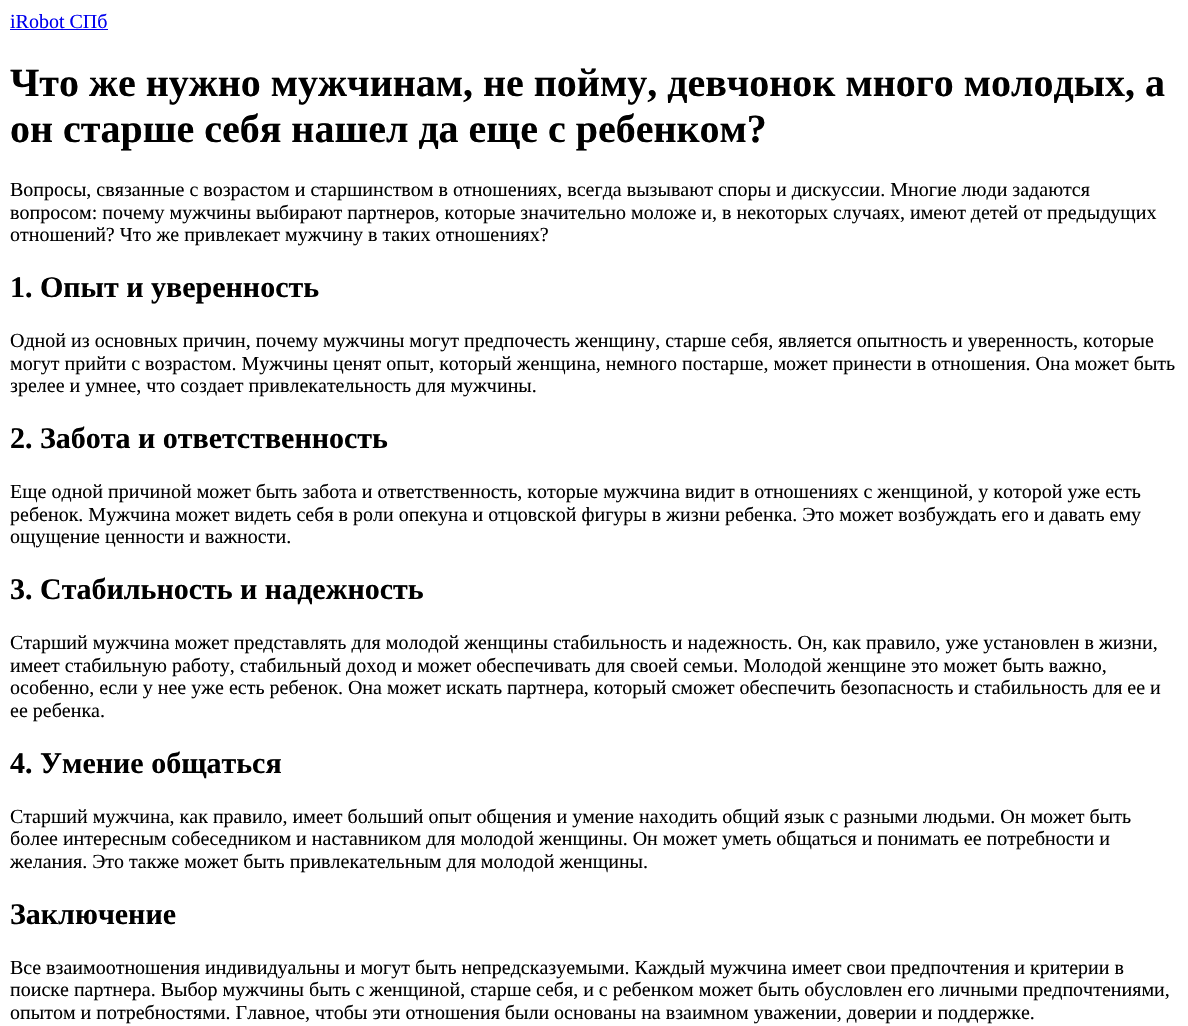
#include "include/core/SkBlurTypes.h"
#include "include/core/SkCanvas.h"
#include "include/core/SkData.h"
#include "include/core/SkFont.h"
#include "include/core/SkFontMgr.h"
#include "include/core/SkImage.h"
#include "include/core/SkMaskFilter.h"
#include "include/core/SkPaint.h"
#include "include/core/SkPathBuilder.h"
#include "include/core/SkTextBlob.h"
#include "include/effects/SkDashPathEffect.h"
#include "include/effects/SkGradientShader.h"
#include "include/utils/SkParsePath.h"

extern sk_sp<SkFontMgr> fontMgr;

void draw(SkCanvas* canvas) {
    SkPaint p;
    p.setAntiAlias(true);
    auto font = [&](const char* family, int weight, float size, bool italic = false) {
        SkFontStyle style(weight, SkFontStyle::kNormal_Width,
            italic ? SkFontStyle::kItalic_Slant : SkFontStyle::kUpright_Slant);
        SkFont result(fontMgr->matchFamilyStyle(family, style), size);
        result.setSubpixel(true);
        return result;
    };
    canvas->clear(0xFFFFFFFF);
    auto font1 = font("Liberation Serif", 400, 20);
    p.setColor(0xFF0000EE);
    canvas->drawString("iRobot СПб", 10, 28, font1, p);
    canvas->drawRect(SkRect::MakeLTRB(10, 29, 108, 30), p);
    auto font2 = font("Liberation Serif", 700, 40);
    p.setColor(0xFF000000);
    canvas->drawString("Что же нужно мужчинам, не пойму, девчонок много молодых, а", 10, 96, font2, p);
    canvas->drawString("он старше себя нашел да еще с ребенком?", 10, 142, font2, p);
    {
        const struct { const char* s; float x, y; } items[] = {
            {"Вопросы, связанные с возрастом и старшинством в отношениях, всегда вызывают споры и дискуссии. Многие люди задаются", 10, 196},
            {"вопросом: почему мужчины выбирают партнеров, которые значительно моложе и, в некоторых случаях, имеют детей от предыдущих", 10, 219},
            {"отношений? Что же привлекает мужчину в таких отношениях?", 10, 241},
        };
        for (auto [s, x, y] : items) {
            canvas->drawString(s, x, y, font1, p);
        }
    }
    auto font3 = font("Liberation Serif", 700, 30);
    canvas->drawString("1. Опыт и уверенность", 10, 297, font3, p);
    {
        const struct { const char* s; float x, y; } items[] = {
            {"Одной из основных причин, почему мужчины могут предпочесть женщину, старше себя, является опытность и уверенность, которые", 10, 347},
            {"могут прийти с возрастом. Мужчины ценят опыт, который женщина, немного постарше, может принести в отношения. Она может быть", 10, 370},
            {"зрелее и умнее, что создает привлекательность для мужчины.", 10, 392},
        };
        for (auto [s, x, y] : items) {
            canvas->drawString(s, x, y, font1, p);
        }
    }
    canvas->drawString("2. Забота и ответственность", 10, 448, font3, p);
    {
        const struct { const char* s; float x, y; } items[] = {
            {"Еще одной причиной может быть забота и ответственность, которые мужчина видит в отношениях с женщиной, у которой уже есть", 10, 498},
            {"ребенок. Мужчина может видеть себя в роли опекуна и отцовской фигуры в жизни ребенка. Это может возбуждать его и давать ему", 10, 521},
            {"ощущение ценности и важности.", 10, 543},
        };
        for (auto [s, x, y] : items) {
            canvas->drawString(s, x, y, font1, p);
        }
    }
    canvas->drawString("3. Стабильность и надежность", 10, 599, font3, p);
    {
        const struct { const char* s; float x, y; } items[] = {
            {"Старший мужчина может представлять для молодой женщины стабильность и надежность. Он, как правило, уже установлен в жизни,", 10, 649},
            {"имеет стабильную работу, стабильный доход и может обеспечивать для своей семьи. Молодой женщине это может быть важно,", 10, 672},
            {"особенно, если у нее уже есть ребенок. Она может искать партнера, который сможет обеспечить безопасность и стабильность для ее и", 10, 694},
            {"ее ребенка.", 10, 717},
        };
        for (auto [s, x, y] : items) {
            canvas->drawString(s, x, y, font1, p);
        }
    }
    canvas->drawString("4. Умение общаться", 10, 773, font3, p);
    {
        const struct { const char* s; float x, y; } items[] = {
            {"Старший мужчина, как правило, имеет больший опыт общения и умение находить общий язык с разными людьми. Он может быть", 10, 823},
            {"более интересным собеседником и наставником для молодой женщины. Он может уметь общаться и понимать ее потребности и", 10, 845},
            {"желания. Это также может быть привлекательным для молодой женщины.", 10, 868},
        };
        for (auto [s, x, y] : items) {
            canvas->drawString(s, x, y, font1, p);
        }
    }
    canvas->drawString("Заключение", 10, 924, font3, p);
    {
        const struct { const char* s; float x, y; } items[] = {
            {"Все взаимоотношения индивидуальны и могут быть непредсказуемыми. Каждый мужчина имеет свои предпочтения и критерии в", 10, 974},
            {"поиске партнера. Выбор мужчины быть с женщиной, старше себя, и с ребенком может быть обусловлен его личными предпочтениями,", 10, 996},
            {"опытом и потребностями. Главное, чтобы эти отношения были основаны на взаимном уважении, доверии и поддержке.", 10, 1019},
        };
        for (auto [s, x, y] : items) {
            canvas->drawString(s, x, y, font1, p);
        }
    }
}
